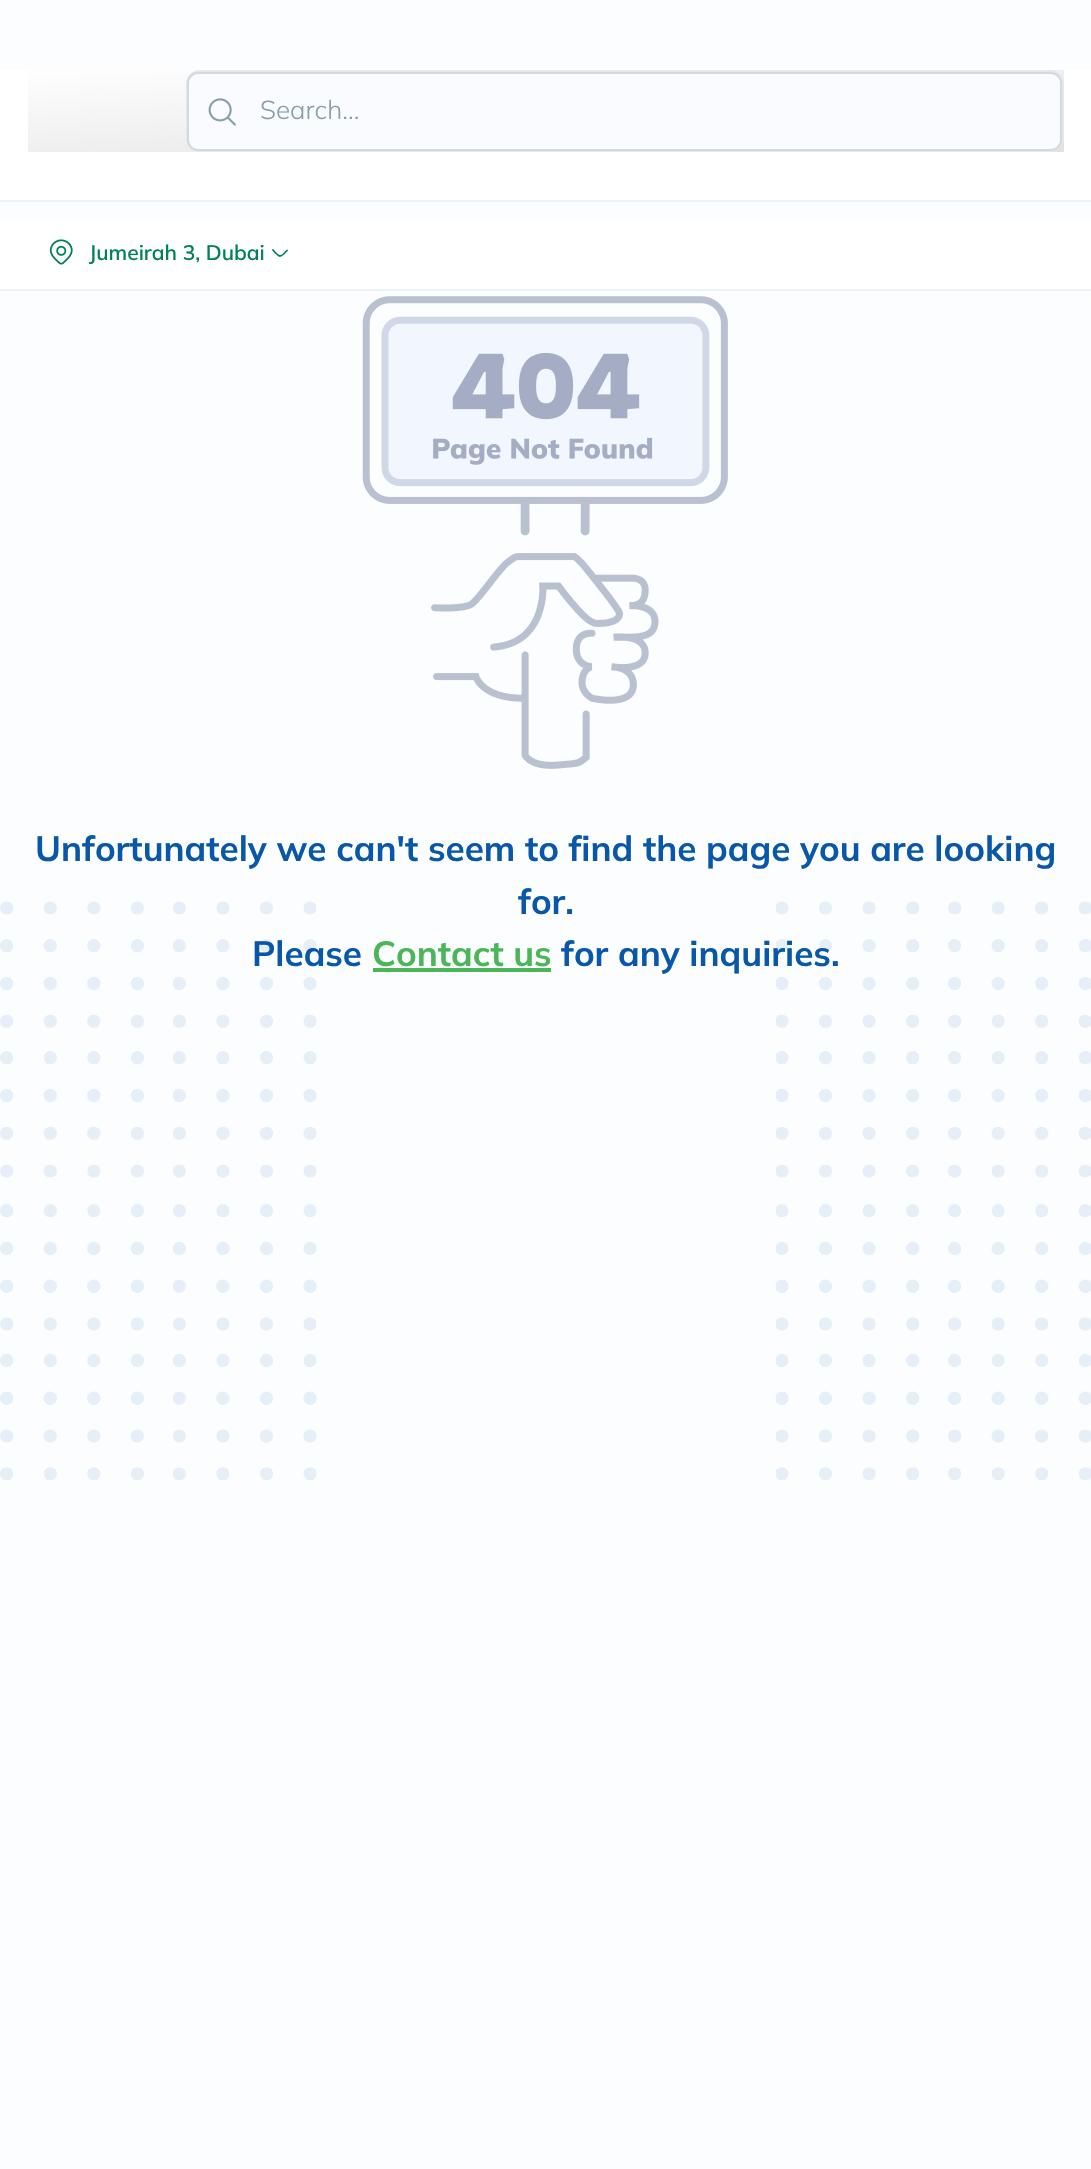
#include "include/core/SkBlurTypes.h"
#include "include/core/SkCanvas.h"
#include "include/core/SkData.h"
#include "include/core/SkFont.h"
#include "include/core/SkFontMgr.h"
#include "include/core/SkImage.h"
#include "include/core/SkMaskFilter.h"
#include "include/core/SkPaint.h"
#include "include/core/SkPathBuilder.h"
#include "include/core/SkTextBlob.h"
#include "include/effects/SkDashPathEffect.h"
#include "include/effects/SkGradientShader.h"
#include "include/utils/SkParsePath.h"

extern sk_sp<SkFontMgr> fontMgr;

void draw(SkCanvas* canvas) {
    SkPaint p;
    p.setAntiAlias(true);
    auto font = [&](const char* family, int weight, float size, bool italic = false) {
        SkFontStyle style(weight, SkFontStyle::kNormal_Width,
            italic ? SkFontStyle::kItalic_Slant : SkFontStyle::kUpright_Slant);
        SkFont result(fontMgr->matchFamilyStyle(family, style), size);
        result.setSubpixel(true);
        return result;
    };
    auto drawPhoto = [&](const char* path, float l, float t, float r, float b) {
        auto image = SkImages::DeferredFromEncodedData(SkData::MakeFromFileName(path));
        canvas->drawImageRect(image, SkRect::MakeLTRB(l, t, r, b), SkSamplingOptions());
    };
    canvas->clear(0xFFFBFDFF);
    p.setColor(0xFFFFFFFF);
    canvas->drawRect(SkRect::MakeLTRB(0, 70, 1091, 200), p);
    p.setColor(0xFFEBF2F9);
    canvas->drawRect(SkRect::MakeLTRB(0, 200, 1091, 202), p);
    {
        const SkColor colors[] = {0xFFFFFFFF, 0xFFE0E0E0};
        const float stops[] = {0, 1};
        const SkPoint ends[] = {{540, 29}, {552, 193}};
        p.setShader(SkGradientShader::MakeLinear(ends, colors, stops, 2, SkTileMode::kClamp));
        p.setAlpha(255);
    }
    canvas->drawRect(SkRect::MakeLTRB(28, 70, 1064, 152), p);
    p.setStyle(SkPaint::kStroke_Style);
    p.setStrokeWidth(2);
    p.setShader(nullptr);
    p.setColor(0xFFE7E7E7);
    canvas->drawRoundRect(SkRect::MakeLTRB(187, 71, 1063, 151), 13, 13, p);
    p.setStyle(SkPaint::kFill_Style);
    p.setColor(0xFFF9FBFE);
    canvas->drawRoundRect(SkRect::MakeLTRB(188, 73, 1061, 150), 10, 10, p);
    p.setStyle(SkPaint::kStroke_Style);
    p.setColor(0xFFD0DAE4);
    canvas->drawRoundRect(SkRect::MakeLTRB(188, 73, 1061, 150), 10, 10, p);
    drawPhoto("media/1.png", 208, 98, 236, 126);
    auto font1 = font("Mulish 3", 200, 26);
    p.setStyle(SkPaint::kFill_Style);
    p.setColor(0xFF889EA8);
    canvas->drawString("Search...", 260, 119, font1, p);
    drawPhoto("media/2.png", 0, 901, 1091, 1480);
    p.setColor(0xFFFFFFFF);
    canvas->drawRect(SkRect::MakeLTRB(0, 219, 1091, 289), p);
    p.setColor(0xFFEBF2F9);
    canvas->drawRect(SkRect::MakeLTRB(0, 289, 1091, 291), p);
    drawPhoto("media/3.png", 49, 239, 73, 265);
    auto font2 = font("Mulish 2", 200, 21);
    p.setColor(0xFF008158);
    canvas->drawString("Jumeirah 3, Dubai", 89, 260, font2, p);
    p.setStyle(SkPaint::kStroke_Style);
    p.setStrokeWidth(1.8f);
    p.setStrokeCap(SkPaint::kRound_Cap);
    p.setStrokeJoin(SkPaint::kRound_Join);
    canvas->drawPath(SkPathBuilder().moveTo(287, 250.5f).cubicTo(287, 250.5f, 282, 256, 280, 256).cubicTo(278, 256, 273, 250, 273, 250).detach(), p);
    drawPhoto("media/4.png", 362, 296, 728, 769);
    auto font3 = font("Mulish", 200, 35);
    p.setStyle(SkPaint::kFill_Style);
    p.setColor(0xFF0957A8);
    {
        const struct { const char* s; float x, y; } items[] = {
            {"Unfortunately we can't seem to find the page you are looking", 35, 861},
            {"for.", 518, 914},
            {"Please", 252, 966},
        };
        for (auto [s, x, y] : items) {
            canvas->drawString(s, x, y, font3, p);
        }
    }
    p.setColor(0xFF4AB657);
    canvas->drawString("Contact us", 372, 966, font3, p);
    canvas->drawRect(SkRect::MakeLTRB(373, 968, 551, 972), p);
    p.setColor(0xFF0957A8);
    canvas->drawString("for any inquiries.", 561, 966, font3, p);
}
